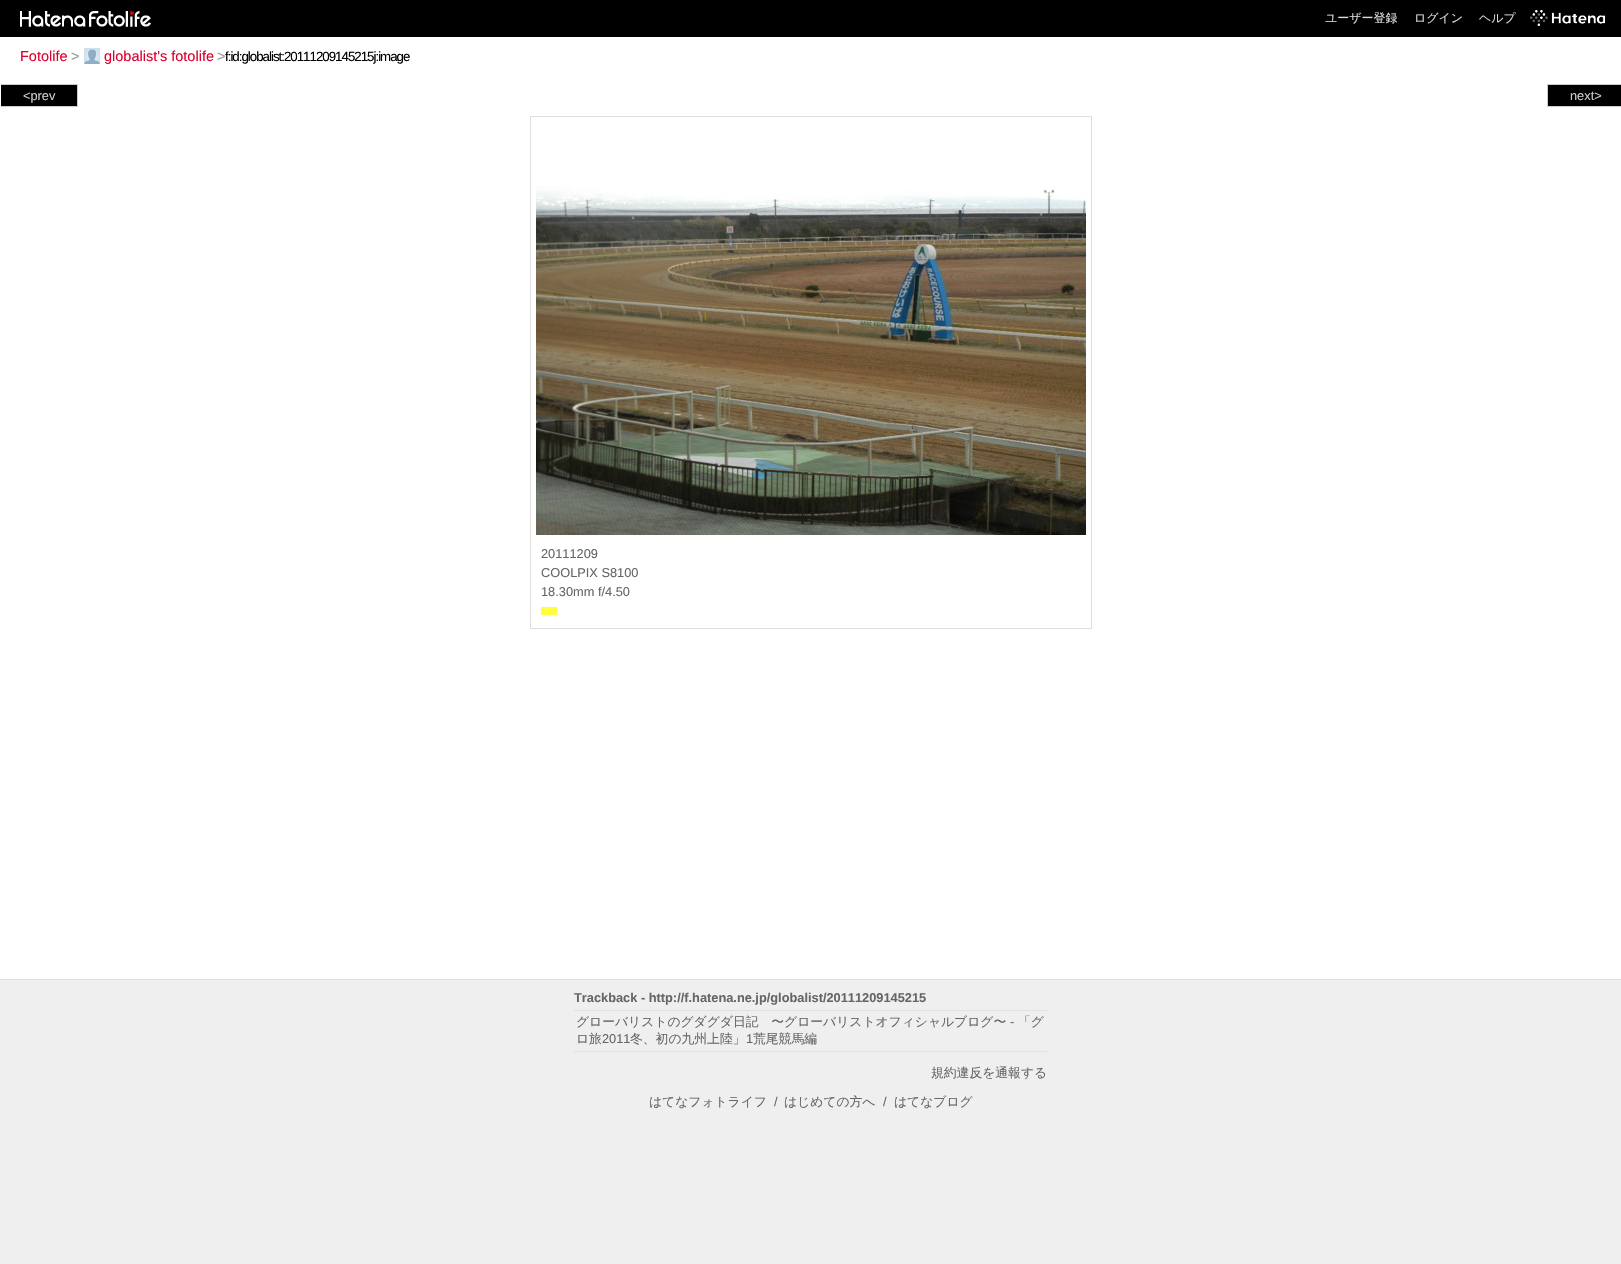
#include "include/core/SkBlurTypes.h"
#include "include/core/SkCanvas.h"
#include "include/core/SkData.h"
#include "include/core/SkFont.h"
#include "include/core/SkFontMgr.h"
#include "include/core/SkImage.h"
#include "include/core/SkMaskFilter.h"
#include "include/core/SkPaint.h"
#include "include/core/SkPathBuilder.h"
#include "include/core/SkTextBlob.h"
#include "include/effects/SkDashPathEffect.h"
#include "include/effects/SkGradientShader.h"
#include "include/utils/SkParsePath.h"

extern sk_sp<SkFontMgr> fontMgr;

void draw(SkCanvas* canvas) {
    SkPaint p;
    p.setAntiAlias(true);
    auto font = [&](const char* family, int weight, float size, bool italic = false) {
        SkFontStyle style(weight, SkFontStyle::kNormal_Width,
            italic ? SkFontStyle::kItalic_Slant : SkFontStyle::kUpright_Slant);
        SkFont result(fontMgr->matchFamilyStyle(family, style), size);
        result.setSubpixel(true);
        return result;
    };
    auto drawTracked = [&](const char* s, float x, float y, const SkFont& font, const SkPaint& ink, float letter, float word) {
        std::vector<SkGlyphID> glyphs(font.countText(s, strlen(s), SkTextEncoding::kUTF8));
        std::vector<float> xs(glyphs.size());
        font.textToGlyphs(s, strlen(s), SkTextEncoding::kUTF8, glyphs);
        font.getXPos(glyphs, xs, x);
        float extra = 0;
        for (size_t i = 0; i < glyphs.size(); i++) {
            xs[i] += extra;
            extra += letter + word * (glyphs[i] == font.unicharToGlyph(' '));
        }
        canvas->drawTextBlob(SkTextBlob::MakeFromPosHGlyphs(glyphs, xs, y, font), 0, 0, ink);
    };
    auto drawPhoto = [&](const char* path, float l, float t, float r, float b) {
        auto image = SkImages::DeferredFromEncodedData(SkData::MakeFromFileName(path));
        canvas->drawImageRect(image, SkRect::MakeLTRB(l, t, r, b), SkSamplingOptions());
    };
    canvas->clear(0xFFEFEFEF);
    p.setColor(0xFF000000);
    canvas->drawRect(SkRect::MakeLTRB(0, 0, 1621, 37), p);
    drawPhoto("media/1.png", 20, 11, 86, 27);
    drawPhoto("media/2.png", 89, 11, 151, 27);
    auto font1 = font("WenQuanYi Zen Hei", 500, 12);
    p.setColor(0xFFDDDDDD);
    {
        const struct { const char* s; float x, y; } items[] = {
            {"ユーザー登録", 1325, 22},
            {"ログイン", 1414, 22},
            {"ヘルプ", 1479, 22},
        };
        for (auto [s, x, y] : items) {
            canvas->drawString(s, x, y, font1, p);
        }
    }
    drawPhoto("media/3.png", 1530, 10, 1605, 26);
    p.setColor(0xFFFFFFFF);
    canvas->drawRect(SkRect::MakeLTRB(0, 37, 1621, 979), p);
    auto font2 = font("Liberation Sans", 400, 14.5f);
    p.setColor(0xFFDE002F);
    canvas->drawString("Fotolife", 20, 61, font2, p);
    p.setColor(0xFF999999);
    canvas->drawString(">", 71, 61, font2, p);
    drawPhoto("media/4.png", 84, 48, 100, 64);
    p.setColor(0xFFDE002F);
    canvas->drawString("globalist's fotolife", 104, 61, font2, p);
    p.setColor(0xFF999999);
    canvas->drawString(">", 217, 61, font2, p);
    auto font3 = font("Liberation Sans", 400, 13.3f);
    p.setColor(0xFF000000);
    drawTracked("f:id:globalist:20111209145215j:image", 225, 61, font3, p, -1, 0);
    {
        const struct { float l, t, r, b; SkColor color; } items[] = {
            {0, 979, 1621, 980, 0xFFDEDEDE},
            {1, 85, 77, 106, 0xFF000000},
            {1, 84, 78, 85, 0xFFCCCCCC},
            {77, 84, 78, 107, 0xFFCCCCCC},
            {1, 106, 78, 107, 0xFFCCCCCC},
        };
        for (auto [l, t, r, b, color] : items) {
            p.setColor(color);
            canvas->drawRect(SkRect::MakeLTRB(l, t, r, b), p);
        }
    }
    auto font4 = font("Liberation Sans", 400, 12.8f);
    canvas->drawString("<prev", 23, 100, font4, p);
    {
        const struct { float l, t, r, b; SkColor color; } items[] = {
            {1548, 85, 1621, 106, 0xFF000000},
            {1547, 84, 1621, 85, 0xFFCCCCCC},
            {1547, 106, 1621, 107, 0xFFCCCCCC},
            {1547, 84, 1548, 107, 0xFFCCCCCC},
        };
        for (auto [l, t, r, b, color] : items) {
            p.setColor(color);
            canvas->drawRect(SkRect::MakeLTRB(l, t, r, b), p);
        }
    }
    canvas->drawString("next>", 1570, 100, font4, p);
    p.setStyle(SkPaint::kStroke_Style);
    p.setStrokeWidth(1);
    p.setColor(0xFFDEDEDE);
    canvas->drawRect(SkRect::MakeLTRB(530.5f, 116.5f, 1091.5f, 628.5f), p);
    drawPhoto("media/5.png", 536, 186, 1086, 535);
    p.setStyle(SkPaint::kFill_Style);
    p.setColor(0xFF666666);
    {
        const struct { const char* s; float x, y; } items[] = {
            {"20111209", 541, 558},
            {"COOLPIX S8100", 541, 577},
            {"18.30mm f/4.50", 541, 596},
        };
        for (auto [s, x, y] : items) {
            canvas->drawString(s, x, y, font4, p);
        }
    }
    p.setColor(0xFFFFFF40);
    canvas->drawRect(SkRect::MakeLTRB(541, 607, 557, 615), p);
    auto font5 = font("Liberation Sans", 700, 12.8f);
    p.setColor(0xFF666666);
    canvas->drawString("Trackback - http://f.hatena.ne.jp/globalist/20111209145215", 574, 1002, font5, p);
    p.setColor(0xFFE1E1E1);
    canvas->drawRect(SkRect::MakeLTRB(574, 1010, 1047, 1011), p);
    canvas->drawRect(SkRect::MakeLTRB(574, 1051, 1047, 1052), p);
    auto font6 = font("WenQuanYi Zen Hei", 500, 12.8f);
    p.setColor(0xFF666666);
    canvas->drawString("グローバリストのグダグダ日記　〜グローバリストオフィシャルブログ〜", 576, 1026, font6, p);
    canvas->drawString("-", 1010, 1026, font4, p);
    canvas->drawString("「グ", 1018, 1026, font6, p);
    canvas->drawString("ロ旅", 576, 1043, font6, p);
    canvas->drawString("2011", 602, 1043, font4, p);
    canvas->drawString("冬、初の九州上陸」", 630, 1043, font6, p);
    canvas->drawString("1", 746, 1043, font4, p);
    {
        const struct { const char* s; float x, y; } items[] = {
            {"荒尾競馬編", 753, 1043},
            {"規約違反を通報する", 931, 1077},
            {"はてなフォトライフ", 649, 1106},
        };
        for (auto [s, x, y] : items) {
            canvas->drawString(s, x, y, font6, p);
        }
    }
    canvas->drawString("/", 774, 1106, font4, p);
    canvas->drawString("はじめての方へ", 784, 1106, font6, p);
    canvas->drawString("/", 883, 1106, font4, p);
    canvas->drawString("はてなブログ", 894, 1106, font6, p);
}
